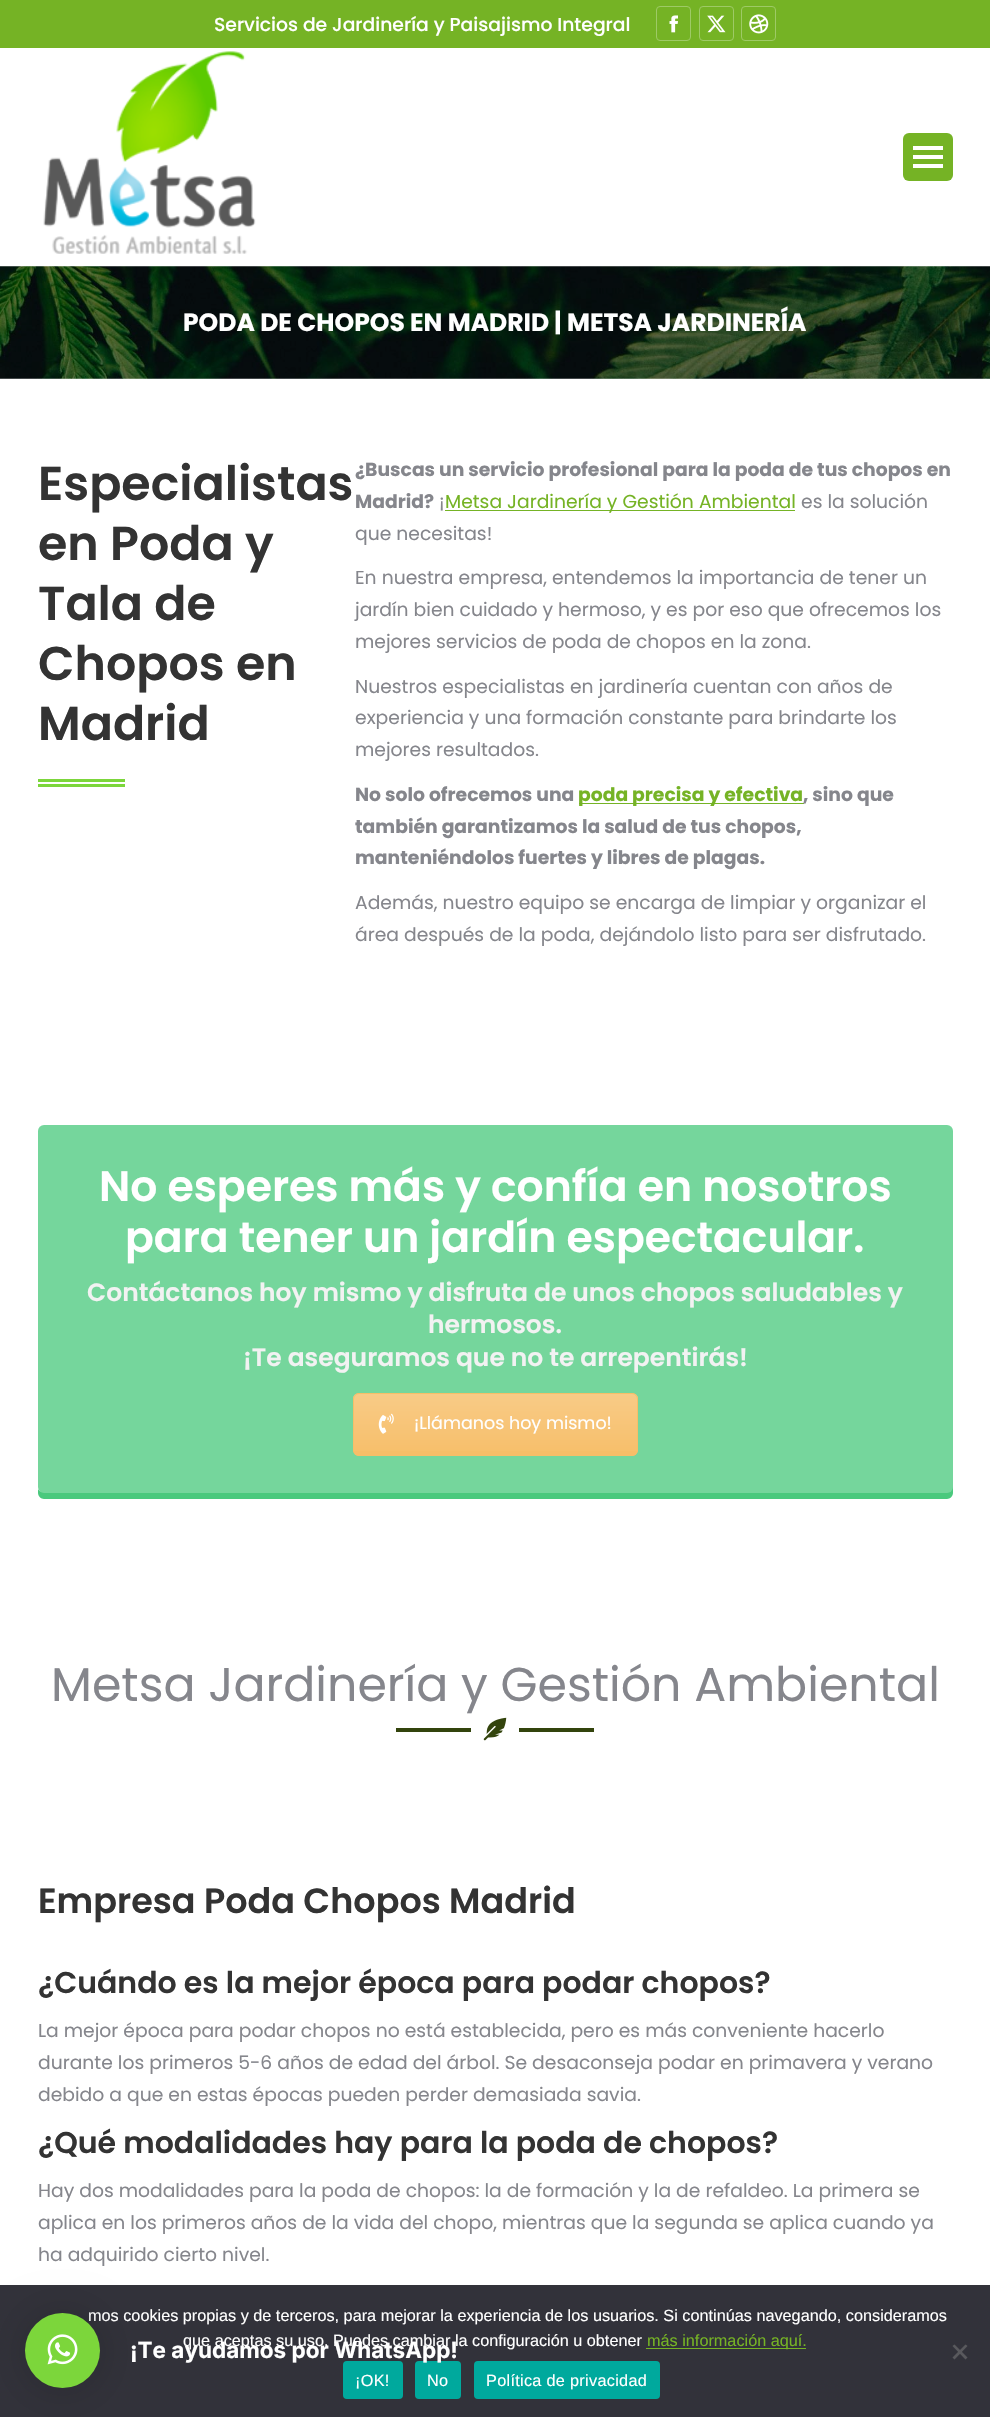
#include "include/core/SkBlurTypes.h"
#include "include/core/SkCanvas.h"
#include "include/core/SkData.h"
#include "include/core/SkFont.h"
#include "include/core/SkFontMgr.h"
#include "include/core/SkImage.h"
#include "include/core/SkMaskFilter.h"
#include "include/core/SkPaint.h"
#include "include/core/SkPathBuilder.h"
#include "include/core/SkTextBlob.h"
#include "include/effects/SkDashPathEffect.h"
#include "include/effects/SkGradientShader.h"
#include "include/utils/SkParsePath.h"

extern sk_sp<SkFontMgr> fontMgr;

void draw(SkCanvas* canvas) {
    SkPaint p;
    p.setAntiAlias(true);
    auto font = [&](const char* family, int weight, float size, bool italic = false) {
        SkFontStyle style(weight, SkFontStyle::kNormal_Width,
            italic ? SkFontStyle::kItalic_Slant : SkFontStyle::kUpright_Slant);
        SkFont result(fontMgr->matchFamilyStyle(family, style), size);
        result.setSubpixel(true);
        return result;
    };
    auto drawTracked = [&](const char* s, float x, float y, const SkFont& font, const SkPaint& ink, float letter, float word) {
        std::vector<SkGlyphID> glyphs(font.countText(s, strlen(s), SkTextEncoding::kUTF8));
        std::vector<float> xs(glyphs.size());
        font.textToGlyphs(s, strlen(s), SkTextEncoding::kUTF8, glyphs);
        font.getXPos(glyphs, xs, x);
        float extra = 0;
        for (size_t i = 0; i < glyphs.size(); i++) {
            xs[i] += extra;
            extra += letter + word * (glyphs[i] == font.unicharToGlyph(' '));
        }
        canvas->drawTextBlob(SkTextBlob::MakeFromPosHGlyphs(glyphs, xs, y, font), 0, 0, ink);
    };
    auto drawPhoto = [&](const char* path, float l, float t, float r, float b) {
        auto image = SkImages::DeferredFromEncodedData(SkData::MakeFromFileName(path));
        canvas->drawImageRect(image, SkRect::MakeLTRB(l, t, r, b), SkSamplingOptions());
    };
    canvas->clear(0xFFFFFFFF);
    p.setColor(0xFF75B325);
    canvas->drawRect(SkRect::MakeLTRB(0, 0, 990, 48), p);
    auto font1 = font("Poppins", 500, 18.75f);
    p.setColor(0xFFFFFFFF);
    canvas->drawString("Servicios de Jardinería y Paisajismo Integral", 214, 31, font1, p);
    p.setStyle(SkPaint::kStroke_Style);
    p.setStrokeWidth(1);
    p.setColor(0xFF9ECA66);
    canvas->drawRoundRect(SkRect::MakeLTRB(656.5f, 6.5f, 690.5f, 40.5f), 3.5f, 3.5f, p);
    drawPhoto("media/1.png", 669, 15, 678, 33);
    canvas->drawRoundRect(SkRect::MakeLTRB(699.5f, 6.5f, 733.5f, 40.5f), 3.5f, 3.5f, p);
    drawPhoto("media/2.png", 707, 15, 726, 33);
    canvas->drawRoundRect(SkRect::MakeLTRB(741.5f, 6.5f, 775.5f, 40.5f), 3.5f, 3.5f, p);
    drawPhoto("media/3.png", 749, 14, 769, 34);
    drawPhoto("media/4.png", 43, 51, 256, 254);
    p.setStyle(SkPaint::kFill_Style);
    p.setColor(0xFF75B325);
    canvas->drawRoundRect(SkRect::MakeLTRB(903, 133, 953, 181), 6, 6, p);
    {
        const struct { float l, t, r, b; SkColor color; } items[] = {
            {913, 146, 943, 150, 0xFFFFFFFF},
            {913, 155, 943, 159, 0xFFFFFFFF},
            {913, 164, 943, 168, 0xFFFFFFFF},
        };
        for (auto [l, t, r, b, color] : items) {
            p.setColor(color);
            canvas->drawRect(SkRect::MakeLTRB(l, t, r, b), p);
        }
    }
    drawPhoto("media/5.png", 0, 266, 990, 379);
    auto font2 = font("Poppins", 700, 25);
    canvas->drawString("PODA DE CHOPOS EN MADRID | METSA JARDINERÍA", 183, 331, font2, p);
    auto font3 = font("Poppins", 600, 47.5f);
    p.setColor(0xFF333333);
    {
        const struct { const char* s; float x, y; } items[] = {
            {"Especialistas", 38, 500},
            {"en Poda y", 38, 560},
            {"Tala de", 38, 620},
            {"Chopos en", 38, 680},
            {"Madrid", 38, 740},
        };
        for (auto [s, x, y] : items) {
            canvas->drawString(s, x, y, font3, p);
        }
    }
    p.setColor(0xFF7CD63B);
    canvas->drawRect(SkRect::MakeLTRB(38, 779, 125, 782), p);
    canvas->drawRect(SkRect::MakeLTRB(38, 784, 125, 787), p);
    auto font4 = font("Poppins", 700, 18.75f);
    p.setColor(0xFF85868C);
    canvas->drawString("¿Buscas un servicio profesional para la poda de tus chopos en", 355, 476, font4, p);
    canvas->drawString("Madrid?", 355, 508, font4, p);
    auto font5 = font("Poppins", 400, 18.75f);
    canvas->drawString("¡", 439, 508, font5, p);
    p.setColor(0xFF75B325);
    canvas->drawRect(SkRect::MakeLTRB(445, 510, 795, 511), p);
    canvas->drawString("Metsa Jardinería y Gestión Ambiental", 445, 508, font5, p);
    p.setColor(0xFF85868C);
    {
        const struct { const char* s; float x, y; } items[] = {
            {"es la solución", 801, 508},
            {"que necesitas!", 355, 540},
            {"En nuestra empresa, entendemos la importancia de tener un", 355, 584},
            {"jardín bien cuidado y hermoso, y es por eso que ofrecemos los", 355, 616},
            {"mejores servicios de poda de chopos en la zona.", 355, 648},
            {"Nuestros especialistas en jardinería cuentan con años de", 355, 693},
            {"experiencia y una formación constante para brindarte los", 355, 724},
            {"mejores resultados.", 355, 756},
        };
        for (auto [s, x, y] : items) {
            canvas->drawString(s, x, y, font5, p);
        }
    }
    canvas->drawString("No solo ofrecemos una", 355, 801, font4, p);
    p.setColor(0xFF75B325);
    canvas->drawRect(SkRect::MakeLTRB(579, 803, 804, 804), p);
    canvas->drawString("poda precisa y efectiva", 578, 801, font4, p);
    p.setColor(0xFF85868C);
    {
        const struct { const char* s; float x, y; } items[] = {
            {", sino que", 803, 801},
            {"también garantizamos la salud de tus chopos,", 355, 833},
            {"manteniéndolos fuertes y libres de plagas.", 355, 864},
        };
        for (auto [s, x, y] : items) {
            canvas->drawString(s, x, y, font4, p);
        }
    }
    canvas->drawString("Además, nuestro equipo se encarga de limpiar y organizar el", 355, 909, font5, p);
    canvas->drawString("área después de la poda, dejándolo listo para ser disfrutado.", 355, 941, font5, p);
    p.setColor(0xFF4AC97D);
    canvas->drawPath(SkPathBuilder().moveTo(38, 1489).lineTo(38, 1493).cubicTo(38, 1496, 41, 1499, 44, 1499).lineTo(947, 1499).cubicTo(950, 1499, 953, 1496, 953, 1493).lineTo(953, 1137).lineTo(952, 1135).lineTo(952, 1486).cubicTo(952, 1490, 950, 1492, 946, 1492).lineTo(44, 1492).cubicTo(41, 1492, 39, 1491, 38, 1489).close().detach(), p);
    p.setColor(0xFF75D69C);
    canvas->drawRoundRect(SkRect::MakeLTRB(38, 1125, 953, 1493), 6, 6, p);
    auto font6 = font("Poppins", 600, 42.5f);
    p.setColor(0xFFFFFFFF);
    canvas->drawString("No esperes más y confía en nosotros", 99, 1201, font6, p);
    canvas->drawString("para tener un jardín espectacular.", 125, 1252, font6, p);
    auto font7 = font("Poppins", 600, 25);
    p.setColor(0xFFF2F2F2);
    {
        const struct { const char* s; float x, y; } items[] = {
            {"Contáctanos hoy mismo y disfruta de unos chopos saludables y", 87, 1301},
            {"hermosos.", 428, 1333},
            {"¡Te aseguramos que no te arrepentirás!", 243, 1366},
        };
        for (auto [s, x, y] : items) {
            canvas->drawString(s, x, y, font7, p);
        }
    }
    p.setColor(0xFFF7BE68);
    canvas->drawRoundRect(SkRect::MakeLTRB(353, 1393, 638, 1456), 6, 6, p);
    canvas->save();
    canvas->clipPath(SkPathBuilder().moveTo(359, 1393).lineTo(632, 1393).cubicTo(635.5f, 1393, 638, 1395.5f, 638, 1399).lineTo(638, 1450).cubicTo(638, 1453.5f, 635.5f, 1456, 632, 1456).lineTo(359, 1456).cubicTo(355.5f, 1456, 353, 1453.5f, 353, 1450).lineTo(353, 1399).cubicTo(353, 1395.5f, 355.5f, 1393, 359, 1393).close().detach(), true);
    {
        const SkColor colors[] = {0x33FFFFFF, 0x03FFFFFF};
        const float stops[] = {0, 1};
        const SkPoint ends[] = {{495, 1394}, {495, 1455}};
        p.setShader(SkGradientShader::MakeLinear(ends, colors, stops, 2, SkTileMode::kClamp));
        p.setAlpha(255);
    }
    canvas->drawRect(SkRect::MakeLTRB(353, 1394, 638, 1451), p);
    canvas->restore();
    p.setStyle(SkPaint::kStroke_Style);
    p.setShader(nullptr);
    p.setColor(0xFFF7BE68);
    canvas->drawRoundRect(SkRect::MakeLTRB(353.5f, 1393.5f, 637.5f, 1455.5f), 5.5f, 5.5f, p);
    drawPhoto("media/6.png", 378, 1413, 394, 1434);
    auto font8 = font("Poppins", 400, 17.5f);
    p.setStyle(SkPaint::kFill_Style);
    p.setColor(0xFFFFFFFF);
    canvas->drawString("¡Llámanos hoy mismo!", 414, 1429, font8, p);
    auto font9 = font("Poppins", 400, 47.5f);
    p.setColor(0xFF85868C);
    canvas->drawString("Metsa Jardinería y Gestión Ambiental", 51, 1701, font9, p);
    p.setColor(0xFF33440D);
    canvas->drawRect(SkRect::MakeLTRB(396, 1728, 471, 1732), p);
    drawPhoto("media/7.png", 483, 1717, 507, 1741);
    canvas->drawRect(SkRect::MakeLTRB(519, 1728, 594, 1732), p);
    auto font10 = font("Poppins", 600, 35);
    p.setColor(0xFF333333);
    canvas->drawString("Empresa Poda Chopos Madrid", 38, 1913, font10, p);
    auto font11 = font("Poppins", 600, 30);
    canvas->drawString("¿Cuándo es la mejor época para podar chopos?", 38, 1993, font11, p);
    p.setColor(0xFF85868C);
    {
        const struct { const char* s; float x, y; } items[] = {
            {"La mejor época para podar chopos no está establecida, pero es más conveniente hacerlo", 38, 2037},
            {"durante los primeros 5-6 años de edad del árbol. Se desaconseja podar en primavera y verano", 38, 2069},
            {"debido a que en estas épocas pueden perder demasiada savia.", 38, 2101},
        };
        for (auto [s, x, y] : items) {
            canvas->drawString(s, x, y, font5, p);
        }
    }
    p.setColor(0xFF333333);
    canvas->drawString("¿Qué modalidades hay para la poda de chopos?", 38, 2153, font11, p);
    p.setColor(0xFF85868C);
    {
        const struct { const char* s; float x, y; } items[] = {
            {"Hay dos modalidades para la poda de chopos: la de formación y la de refaldeo. La primera se", 38, 2197},
            {"aplica en los primeros años de la vida del chopo, mientras que la segunda se aplica cuando ya", 38, 2229},
            {"ha adquirido cierto nivel.", 38, 2261},
        };
        for (auto [s, x, y] : items) {
            canvas->drawString(s, x, y, font5, p);
        }
    }
    p.setColor(0xFF32323A);
    canvas->drawRect(SkRect::MakeLTRB(0, 2285, 990, 2417), p);
    auto font12 = font("Liberation Sans", 400, 16.25f);
    p.setColor(0xFFFFFFFF);
    canvas->drawString("mos cookies propias y de terceros, para mejorar la experiencia de los usuarios. Si continúas navegando, consideramos", 88, 2321, font12, p);
    canvas->drawString("que aceptas su uso. Puedes cambiar la configuración u obtener", 183, 2346, font12, p);
    p.setColor(0xFF75B325);
    canvas->drawRect(SkRect::MakeLTRB(646, 2348, 806, 2349), p);
    canvas->drawString("más información aquí.", 647, 2346, font12, p);
    p.setColor(0xFF59595D);
    canvas->drawPath(SkPathBuilder().moveTo(965.5f, 2344.5f).lineTo(967.5f, 2346).lineTo(954.5f, 2359.5f).lineTo(952.5f, 2357.5f).close().detach(), p);
    canvas->drawPath(SkPathBuilder().moveTo(952.5f, 2346).lineTo(954.5f, 2344.5f).lineTo(967.5f, 2357.5f).lineTo(965.5f, 2359.5f).close().detach(), p);
    p.setColor(0xFF00A99D);
    canvas->drawRoundRect(SkRect::MakeLTRB(343, 2361, 403, 2399), 4, 4, p);
    p.setColor(0xFFFFFFFF);
    drawTracked("¡OK!", 355, 2386, font12, p, 0.3f, 0);
    p.setColor(0xFF00A99D);
    canvas->drawRoundRect(SkRect::MakeLTRB(415, 2361, 461, 2399), 4, 4, p);
    p.setColor(0xFFFFFFFF);
    drawTracked("No", 427, 2386, font12, p, 0.3f, 0);
    p.setColor(0xFF00A99D);
    canvas->drawRoundRect(SkRect::MakeLTRB(474, 2361, 660, 2399), 4, 4, p);
    p.setColor(0xFFFFFFFF);
    drawTracked("Política de privacidad", 486, 2386, font12, p, 0.3f, 0);
    p.setColor(0x29000000);
    p.setMaskFilter(SkMaskFilter::MakeBlur(kNormal_SkBlurStyle, 20));
    canvas->drawRoundRect(SkRect::MakeLTRB(25, 2315, 100, 2390), 37.5f, 37.5f, p);
    p.setMaskFilter(nullptr);
    p.setColor(0xFF7CD63B);
    canvas->drawCircle(62.5f, 2350.5f, 37.5f, p);
    drawPhoto("media/8.png", 47, 2334, 78, 2365);
    auto font13 = font("Inter", 700, 22.5f);
    p.setColor(0xFFFFFFFF);
    canvas->drawString("¡Te ayudamos por WhatsApp!", 130, 2358, font13, p);
}
